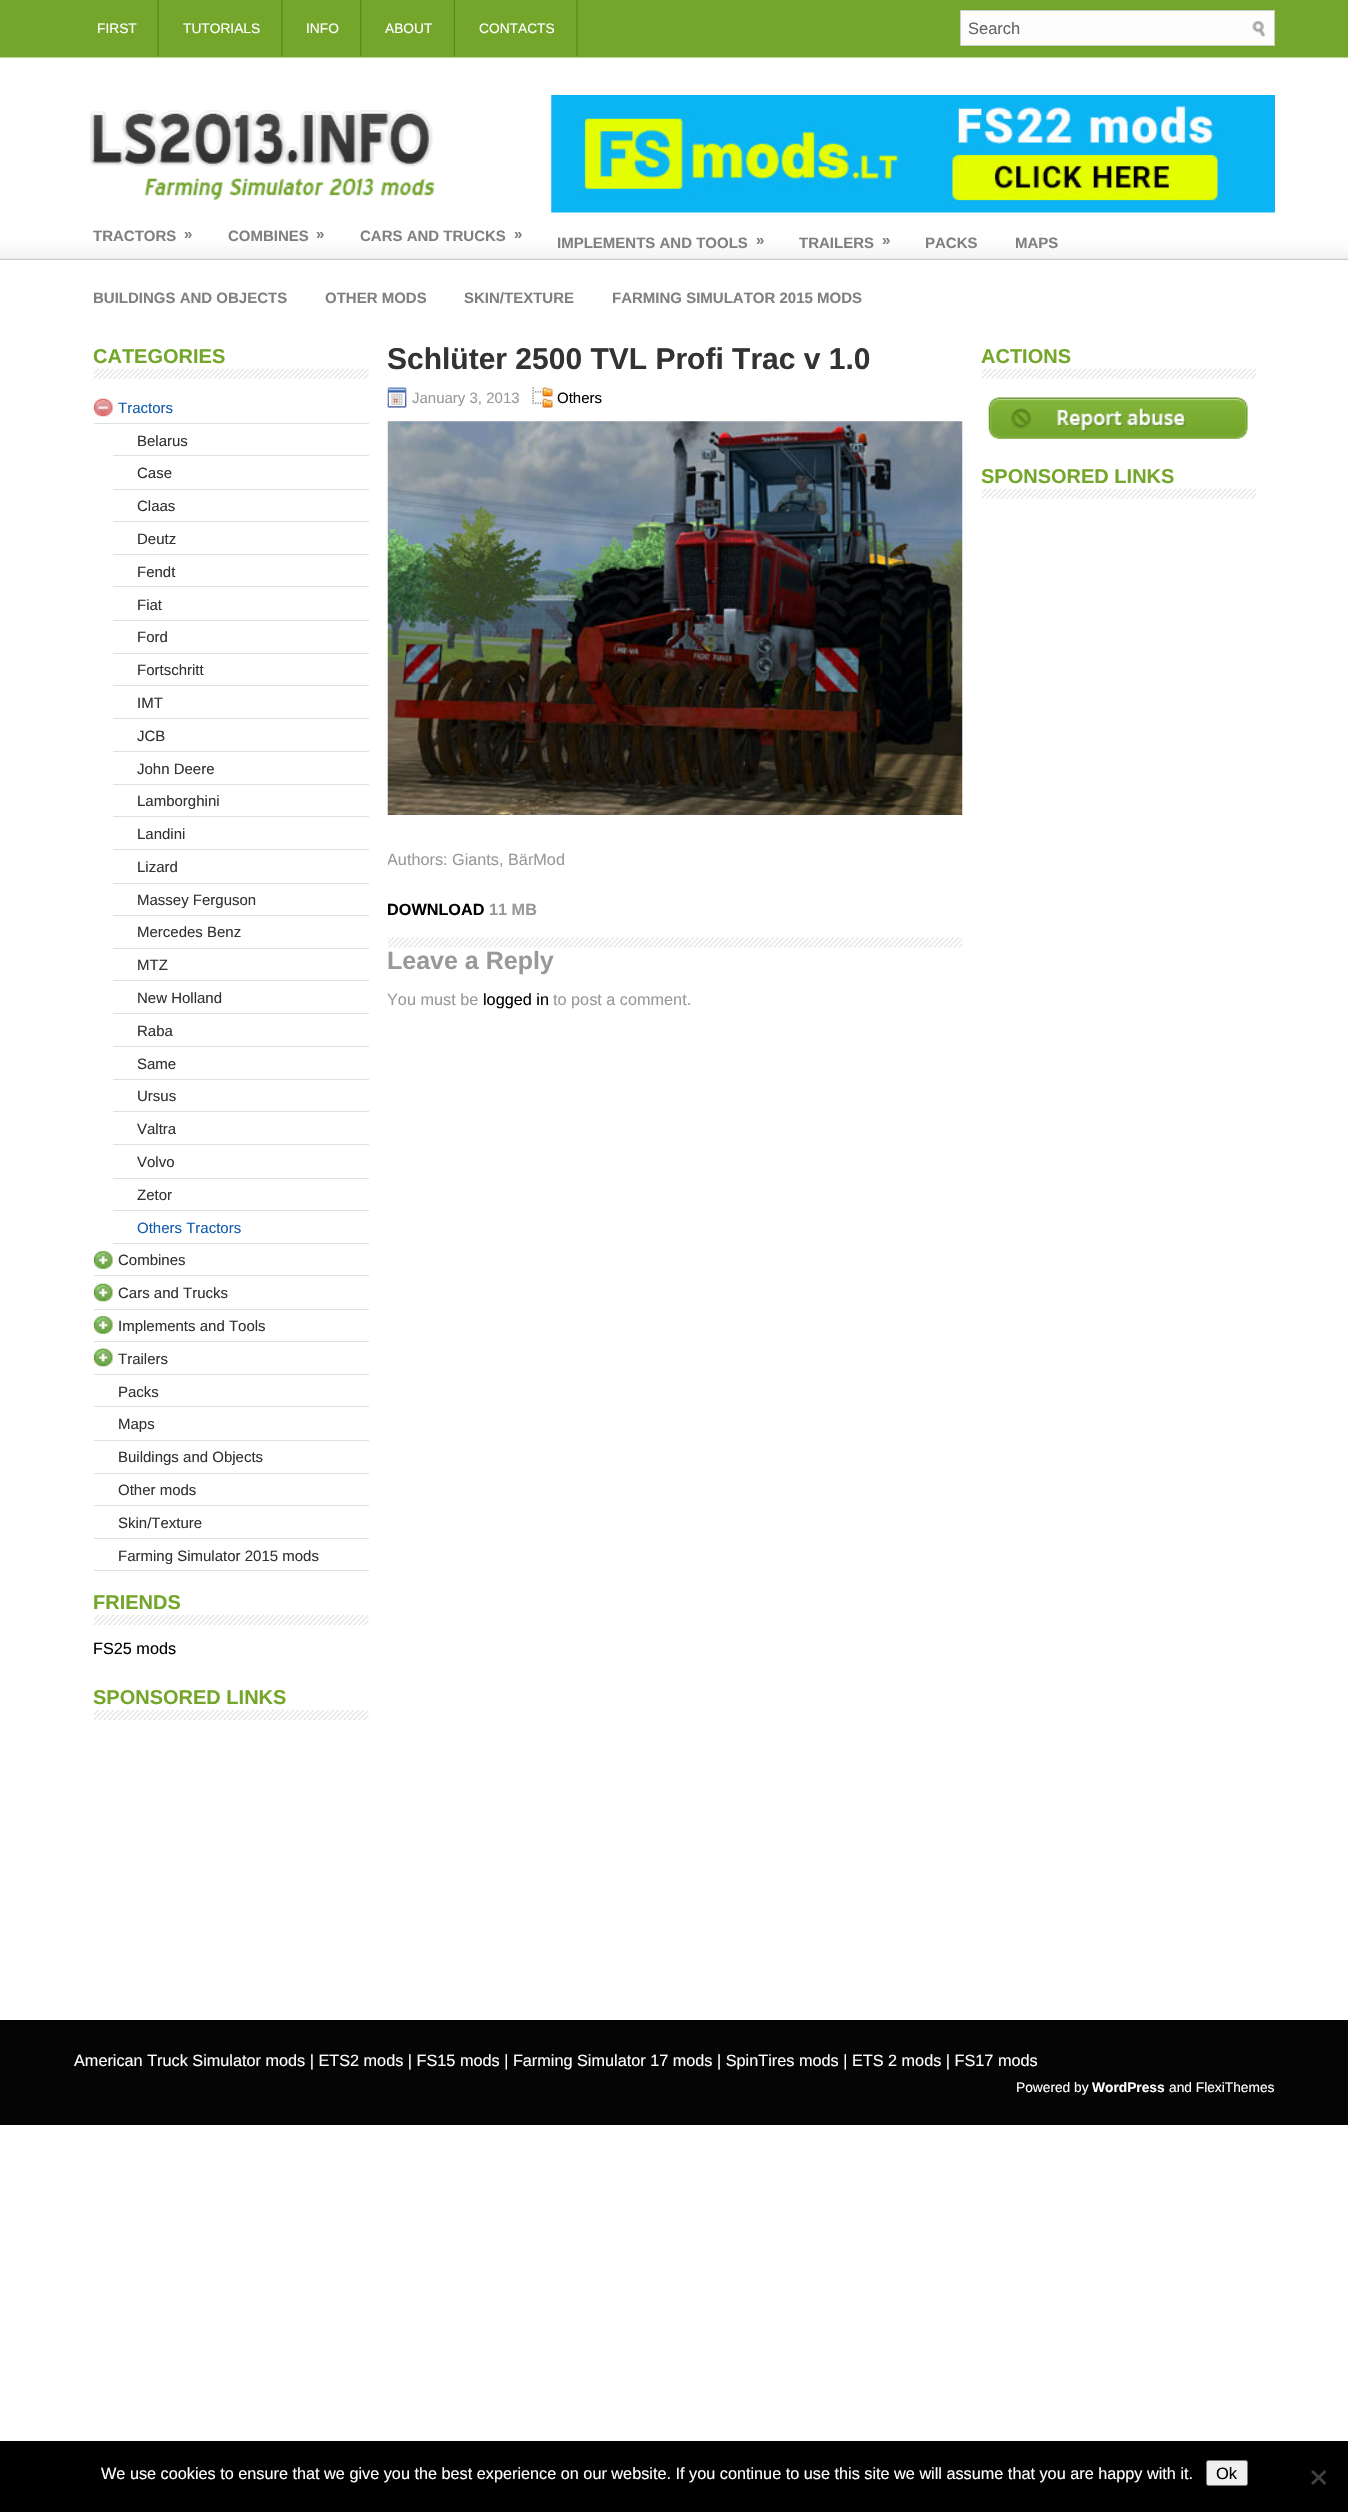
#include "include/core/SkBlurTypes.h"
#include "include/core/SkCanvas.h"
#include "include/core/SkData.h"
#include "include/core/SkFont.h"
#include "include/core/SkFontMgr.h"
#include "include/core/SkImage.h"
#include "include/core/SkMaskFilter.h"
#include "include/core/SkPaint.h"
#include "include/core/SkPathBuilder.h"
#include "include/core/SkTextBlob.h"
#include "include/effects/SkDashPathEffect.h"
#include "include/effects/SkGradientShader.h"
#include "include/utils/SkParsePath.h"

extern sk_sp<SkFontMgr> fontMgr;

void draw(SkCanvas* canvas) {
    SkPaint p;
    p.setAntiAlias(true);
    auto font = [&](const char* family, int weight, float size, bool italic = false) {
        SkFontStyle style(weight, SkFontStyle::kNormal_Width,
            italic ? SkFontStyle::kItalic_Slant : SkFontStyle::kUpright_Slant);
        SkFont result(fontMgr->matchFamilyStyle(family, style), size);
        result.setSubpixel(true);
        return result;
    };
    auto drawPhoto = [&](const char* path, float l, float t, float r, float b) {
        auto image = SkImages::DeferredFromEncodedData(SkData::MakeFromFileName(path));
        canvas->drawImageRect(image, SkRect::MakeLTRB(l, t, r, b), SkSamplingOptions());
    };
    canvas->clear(0xFFFFFFFF);
    drawPhoto("media/1.png", 0, 0, 1348, 260);
    drawPhoto("media/2.png", 157, 0, 159, 57);
    auto font1 = font("Liberation Sans", 400, 13.75f);
    p.setColor(0xFFFFFFFF);
    canvas->drawString("FIRST", 97, 33, font1, p);
    drawPhoto("media/3.png", 281, 0, 283, 57);
    canvas->drawString("TUTORIALS", 183, 33, font1, p);
    drawPhoto("media/4.png", 360, 0, 362, 57);
    canvas->drawString("INFO", 306, 33, font1, p);
    drawPhoto("media/5.png", 453, 0, 455, 57);
    canvas->drawString("ABOUT", 385, 33, font1, p);
    drawPhoto("media/3.png", 576, 0, 578, 57);
    canvas->drawString("CONTACTS", 479, 33, font1, p);
    p.setColor(0xFFFDFDFD);
    canvas->drawRect(SkRect::MakeLTRB(961, 11, 1274, 45), p);
    drawPhoto("media/6.png", 1252, 20, 1266, 37);
    p.setStyle(SkPaint::kStroke_Style);
    p.setStrokeWidth(1);
    p.setColor(0xFFCCCCCC);
    canvas->drawRect(SkRect::MakeLTRB(960.5f, 10.5f, 1274.5f, 45.5f), p);
    auto font2 = font("Liberation Sans", 400, 16.5f);
    p.setStyle(SkPaint::kFill_Style);
    p.setColor(0xFF666666);
    canvas->drawString("Search", 968, 34, font2, p);
    drawPhoto("media/7.png", 90, 110, 435, 201);
    drawPhoto("media/8.png", 551, 95, 1275, 213);
    auto font3 = font("Liberation Sans", 700, 15);
    p.setColor(0xFF808080);
    {
        const struct { const char* s; float x, y; } items[] = {
            {"TRACTORS", 93, 241},
            {"»", 184, 239},
            {"COMBINES", 228, 241},
            {"»", 316, 239},
            {"CARS AND TRUCKS", 360, 241},
            {"»", 514, 239},
            {"IMPLEMENTS AND TOOLS", 557, 248},
            {"»", 756, 245},
            {"TRAILERS", 799, 248},
            {"»", 882, 245},
            {"PACKS", 925, 248},
            {"MAPS", 1015, 248},
            {"BUILDINGS AND OBJECTS", 93, 303},
            {"OTHER MODS", 325, 303},
            {"SKIN/TEXTURE", 464, 303},
            {"FARMING SIMULATOR 2015 MODS", 612, 303},
        };
        for (auto [s, x, y] : items) {
            canvas->drawString(s, x, y, font3, p);
        }
    }
    drawPhoto("media/9.png", 94, 368, 369, 379);
    auto font4 = font("Liberation Sans", 700, 20);
    p.setColor(0xFF74A62C);
    canvas->drawString("CATEGORIES", 93, 363, font4, p);
    drawPhoto("media/10.png", 93, 398, 113, 417);
    p.setColor(0xFFE0E0E0);
    canvas->drawRect(SkRect::MakeLTRB(94, 423, 369, 424), p);
    auto font5 = font("Arimo", 400, 15);
    p.setColor(0xFF135CAE);
    canvas->drawString("Tractors", 118, 413, font5, p);
    p.setColor(0xFFE0E0E0);
    canvas->drawRect(SkRect::MakeLTRB(113, 455, 369, 456), p);
    p.setColor(0xFF333333);
    canvas->drawString("Belarus", 137, 446, font5, p);
    p.setColor(0xFFE0E0E0);
    canvas->drawRect(SkRect::MakeLTRB(113, 489, 369, 490), p);
    p.setColor(0xFF333333);
    canvas->drawString("Case", 137, 478, font5, p);
    p.setColor(0xFFE0E0E0);
    canvas->drawRect(SkRect::MakeLTRB(113, 521, 369, 522), p);
    p.setColor(0xFF333333);
    canvas->drawString("Claas", 137, 511, font5, p);
    p.setColor(0xFFE0E0E0);
    canvas->drawRect(SkRect::MakeLTRB(113, 554, 369, 555), p);
    p.setColor(0xFF333333);
    canvas->drawString("Deutz", 137, 544, font5, p);
    p.setColor(0xFFE0E0E0);
    canvas->drawRect(SkRect::MakeLTRB(113, 586, 369, 587), p);
    p.setColor(0xFF333333);
    canvas->drawString("Fendt", 137, 577, font5, p);
    p.setColor(0xFFE0E0E0);
    canvas->drawRect(SkRect::MakeLTRB(113, 620, 369, 621), p);
    p.setColor(0xFF333333);
    canvas->drawString("Fiat", 137, 610, font5, p);
    p.setColor(0xFFE0E0E0);
    canvas->drawRect(SkRect::MakeLTRB(113, 653, 369, 654), p);
    p.setColor(0xFF333333);
    canvas->drawString("Ford", 137, 642, font5, p);
    p.setColor(0xFFE0E0E0);
    canvas->drawRect(SkRect::MakeLTRB(113, 685, 369, 686), p);
    p.setColor(0xFF333333);
    canvas->drawString("Fortschritt", 137, 675, font5, p);
    p.setColor(0xFFE0E0E0);
    canvas->drawRect(SkRect::MakeLTRB(113, 718, 369, 719), p);
    p.setColor(0xFF333333);
    canvas->drawString("IMT", 137, 708, font5, p);
    p.setColor(0xFFE0E0E0);
    canvas->drawRect(SkRect::MakeLTRB(113, 751, 369, 752), p);
    p.setColor(0xFF333333);
    canvas->drawString("JCB", 137, 741, font5, p);
    p.setColor(0xFFE0E0E0);
    canvas->drawRect(SkRect::MakeLTRB(113, 784, 369, 785), p);
    p.setColor(0xFF333333);
    canvas->drawString("John Deere", 137, 774, font5, p);
    p.setColor(0xFFE0E0E0);
    canvas->drawRect(SkRect::MakeLTRB(113, 816, 369, 817), p);
    p.setColor(0xFF333333);
    canvas->drawString("Lamborghini", 137, 806, font5, p);
    p.setColor(0xFFE0E0E0);
    canvas->drawRect(SkRect::MakeLTRB(113, 849, 369, 850), p);
    p.setColor(0xFF333333);
    canvas->drawString("Landini", 137, 839, font5, p);
    p.setColor(0xFFE0E0E0);
    canvas->drawRect(SkRect::MakeLTRB(113, 883, 369, 884), p);
    p.setColor(0xFF333333);
    canvas->drawString("Lizard", 137, 872, font5, p);
    p.setColor(0xFFE0E0E0);
    canvas->drawRect(SkRect::MakeLTRB(113, 915, 369, 916), p);
    p.setColor(0xFF333333);
    canvas->drawString("Massey Ferguson", 137, 905, font5, p);
    p.setColor(0xFFE0E0E0);
    canvas->drawRect(SkRect::MakeLTRB(113, 948, 369, 949), p);
    p.setColor(0xFF333333);
    canvas->drawString("Mercedes Benz", 137, 937, font5, p);
    p.setColor(0xFFE0E0E0);
    canvas->drawRect(SkRect::MakeLTRB(113, 980, 369, 981), p);
    p.setColor(0xFF333333);
    canvas->drawString("MTZ", 137, 970, font5, p);
    p.setColor(0xFFE0E0E0);
    canvas->drawRect(SkRect::MakeLTRB(113, 1013, 369, 1014), p);
    p.setColor(0xFF333333);
    canvas->drawString("New Holland", 137, 1003, font5, p);
    p.setColor(0xFFE0E0E0);
    canvas->drawRect(SkRect::MakeLTRB(113, 1046, 369, 1047), p);
    p.setColor(0xFF333333);
    canvas->drawString("Raba", 137, 1036, font5, p);
    p.setColor(0xFFE0E0E0);
    canvas->drawRect(SkRect::MakeLTRB(113, 1079, 369, 1080), p);
    p.setColor(0xFF333333);
    canvas->drawString("Same", 137, 1069, font5, p);
    p.setColor(0xFFE0E0E0);
    canvas->drawRect(SkRect::MakeLTRB(113, 1111, 369, 1112), p);
    p.setColor(0xFF333333);
    canvas->drawString("Ursus", 137, 1101, font5, p);
    p.setColor(0xFFE0E0E0);
    canvas->drawRect(SkRect::MakeLTRB(113, 1144, 369, 1145), p);
    p.setColor(0xFF333333);
    canvas->drawString("Valtra", 137, 1134, font5, p);
    p.setColor(0xFFE0E0E0);
    canvas->drawRect(SkRect::MakeLTRB(113, 1178, 369, 1179), p);
    p.setColor(0xFF333333);
    canvas->drawString("Volvo", 137, 1167, font5, p);
    p.setColor(0xFFE0E0E0);
    canvas->drawRect(SkRect::MakeLTRB(113, 1210, 369, 1211), p);
    p.setColor(0xFF333333);
    canvas->drawString("Zetor", 137, 1200, font5, p);
    p.setColor(0xFFE0E0E0);
    canvas->drawRect(SkRect::MakeLTRB(113, 1243, 369, 1244), p);
    p.setColor(0xFF135CAE);
    canvas->drawString("Others Tractors", 137, 1233, font5, p);
    drawPhoto("media/11.png", 93, 1251, 113, 1269);
    p.setColor(0xFFE0E0E0);
    canvas->drawRect(SkRect::MakeLTRB(94, 1275, 369, 1276), p);
    p.setColor(0xFF333333);
    canvas->drawString("Combines", 118, 1265, font5, p);
    drawPhoto("media/12.png", 93, 1283, 113, 1302);
    p.setColor(0xFFE0E0E0);
    canvas->drawRect(SkRect::MakeLTRB(94, 1309, 369, 1310), p);
    p.setColor(0xFF333333);
    canvas->drawString("Cars and Trucks", 118, 1298, font5, p);
    drawPhoto("media/11.png", 93, 1316, 113, 1334);
    p.setColor(0xFFE0E0E0);
    canvas->drawRect(SkRect::MakeLTRB(94, 1341, 369, 1342), p);
    p.setColor(0xFF333333);
    canvas->drawString("Implements and Tools", 118, 1331, font5, p);
    drawPhoto("media/12.png", 93, 1348, 113, 1367);
    p.setColor(0xFFE0E0E0);
    canvas->drawRect(SkRect::MakeLTRB(94, 1374, 369, 1375), p);
    p.setColor(0xFF333333);
    canvas->drawString("Trailers", 118, 1364, font5, p);
    p.setColor(0xFFE0E0E0);
    canvas->drawRect(SkRect::MakeLTRB(94, 1406, 369, 1407), p);
    p.setColor(0xFF333333);
    canvas->drawString("Packs", 118, 1397, font5, p);
    p.setColor(0xFFE0E0E0);
    canvas->drawRect(SkRect::MakeLTRB(94, 1440, 369, 1441), p);
    p.setColor(0xFF333333);
    canvas->drawString("Maps", 118, 1429, font5, p);
    p.setColor(0xFFE0E0E0);
    canvas->drawRect(SkRect::MakeLTRB(94, 1473, 369, 1474), p);
    p.setColor(0xFF333333);
    canvas->drawString("Buildings and Objects", 118, 1462, font5, p);
    p.setColor(0xFFE0E0E0);
    canvas->drawRect(SkRect::MakeLTRB(94, 1505, 369, 1506), p);
    p.setColor(0xFF333333);
    canvas->drawString("Other mods", 118, 1495, font5, p);
    p.setColor(0xFFE0E0E0);
    canvas->drawRect(SkRect::MakeLTRB(94, 1538, 369, 1539), p);
    p.setColor(0xFF333333);
    canvas->drawString("Skin/Texture", 118, 1528, font5, p);
    p.setColor(0xFFE0E0E0);
    canvas->drawRect(SkRect::MakeLTRB(94, 1570, 369, 1571), p);
    p.setColor(0xFF333333);
    canvas->drawString("Farming Simulator 2015 mods", 118, 1561, font5, p);
    drawPhoto("media/13.png", 94, 1615, 369, 1625);
    p.setColor(0xFF74A62C);
    canvas->drawString("FRIENDS", 93, 1609, font4, p);
    auto font6 = font("Liberation Sans", 400, 16.25f);
    p.setColor(0xFF000000);
    canvas->drawString("FS25 mods", 93, 1654, font6, p);
    drawPhoto("media/14.png", 94, 1710, 369, 1720);
    p.setColor(0xFF74A62C);
    canvas->drawString("SPONSORED LINKS", 93, 1704, font4, p);
    drawPhoto("media/15.png", 387, 937, 963, 948);
    auto font7 = font("Liberation Sans", 700, 30);
    p.setColor(0xFF333333);
    canvas->drawString("Schlüter 2500 TVL Profi Trac v 1.0", 387, 369, font7, p);
    drawPhoto("media/16.png", 387, 387, 407, 408);
    auto font8 = font("Liberation Sans", 400, 15);
    p.setColor(0xFF999999);
    canvas->drawString("January 3, 2013", 412, 403, font8, p);
    drawPhoto("media/17.png", 532, 387, 553, 408);
    p.setColor(0xFF000000);
    canvas->drawString("Others", 557, 403, font8, p);
    drawPhoto("media/18.png", 387, 421, 963, 815);
    canvas->save();
    canvas->clipRect(SkRect::MakeLTRB(388, 344, 963, 1051));
    p.setColor(0xFF999999);
    canvas->drawString("Authors: Giants, BärMod", 387, 865, font6, p);
    canvas->restore();
    auto font9 = font("Liberation Sans", 700, 16.25f);
    p.setColor(0xFF000000);
    canvas->drawString("DOWNLOAD", 387, 915, font9, p);
    p.setColor(0xFF999999);
    canvas->drawString("11 MB", 489, 915, font9, p);
    auto font10 = font("Liberation Sans", 700, 25);
    canvas->drawString("Leave a Reply", 387, 969, font10, p);
    canvas->drawString("You must be", 387, 1005, font6, p);
    p.setColor(0xFF000000);
    canvas->drawString("logged in", 483, 1005, font6, p);
    p.setColor(0xFF999999);
    canvas->drawString("to post a comment.", 553, 1005, font6, p);
    drawPhoto("media/19.png", 981, 368, 1256, 379);
    p.setColor(0xFF74A62C);
    canvas->drawString("ACTIONS", 981, 363, font4, p);
    drawPhoto("media/20.png", 988, 397, 1248, 439);
    drawPhoto("media/19.png", 981, 488, 1256, 499);
    canvas->drawString("SPONSORED LINKS", 981, 483, font4, p);
    p.setColor(0xFF050505);
    canvas->drawRect(SkRect::MakeLTRB(0, 2020, 1348, 2125), p);
    p.setColor(0xFFFFFFFF);
    canvas->drawString("American Truck Simulator mods | ETS2 mods | FS15 mods | Farming Simulator 17 mods | SpinTires mods | ETS 2 mods | FS17 mods", 74, 2066, font6, p);
    canvas->drawString("Powered by", 1016, 2092, font1, p);
    auto font11 = font("Liberation Sans", 700, 13.75f);
    canvas->drawString("WordPress", 1092, 2092, font11, p);
    canvas->drawString("and FlexiThemes", 1169, 2092, font1, p);
    p.setColor(0xFF000000);
    canvas->drawRect(SkRect::MakeLTRB(0, 2441, 1348, 2512), p);
    p.setColor(0xFFFFFFFF);
    canvas->drawString("We use cookies to ensure that we give you the best experience on our website. If you continue to use this site we will assume that you are happy with it.", 101, 2479, font6, p);
    p.setColor(0xFFEFEFEF);
    canvas->drawRoundRect(SkRect::MakeLTRB(1206.5f, 2460.5f, 1247.5f, 2485.5f), 2, 2, p);
    p.setStyle(SkPaint::kStroke_Style);
    p.setColor(0xFF767676);
    canvas->drawRoundRect(SkRect::MakeLTRB(1206.5f, 2460.5f, 1247.5f, 2485.5f), 2, 2, p);
    p.setStyle(SkPaint::kFill_Style);
    p.setColor(0xFF000000);
    canvas->drawString("Ok", 1216, 2479, font2, p);
    p.setColor(0xFF404040);
    canvas->drawPath(SkPathBuilder().moveTo(1324.5f, 2470).lineTo(1326.5f, 2472).lineTo(1313, 2485).lineTo(1311, 2483).close().detach(), p);
    canvas->drawPath(SkPathBuilder().moveTo(1311, 2472).lineTo(1313, 2470).lineTo(1326.5f, 2483).lineTo(1324.5f, 2485).close().detach(), p);
}
